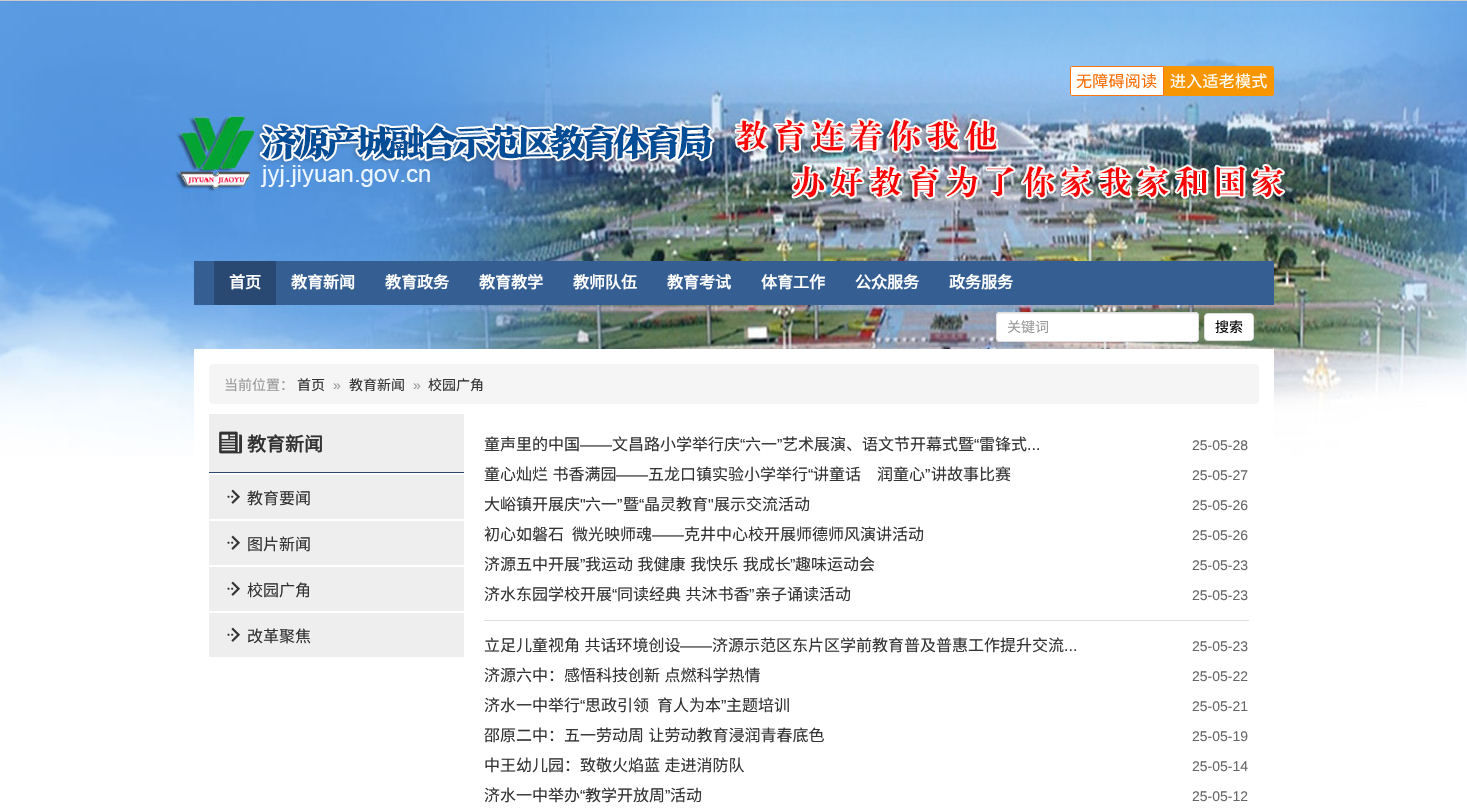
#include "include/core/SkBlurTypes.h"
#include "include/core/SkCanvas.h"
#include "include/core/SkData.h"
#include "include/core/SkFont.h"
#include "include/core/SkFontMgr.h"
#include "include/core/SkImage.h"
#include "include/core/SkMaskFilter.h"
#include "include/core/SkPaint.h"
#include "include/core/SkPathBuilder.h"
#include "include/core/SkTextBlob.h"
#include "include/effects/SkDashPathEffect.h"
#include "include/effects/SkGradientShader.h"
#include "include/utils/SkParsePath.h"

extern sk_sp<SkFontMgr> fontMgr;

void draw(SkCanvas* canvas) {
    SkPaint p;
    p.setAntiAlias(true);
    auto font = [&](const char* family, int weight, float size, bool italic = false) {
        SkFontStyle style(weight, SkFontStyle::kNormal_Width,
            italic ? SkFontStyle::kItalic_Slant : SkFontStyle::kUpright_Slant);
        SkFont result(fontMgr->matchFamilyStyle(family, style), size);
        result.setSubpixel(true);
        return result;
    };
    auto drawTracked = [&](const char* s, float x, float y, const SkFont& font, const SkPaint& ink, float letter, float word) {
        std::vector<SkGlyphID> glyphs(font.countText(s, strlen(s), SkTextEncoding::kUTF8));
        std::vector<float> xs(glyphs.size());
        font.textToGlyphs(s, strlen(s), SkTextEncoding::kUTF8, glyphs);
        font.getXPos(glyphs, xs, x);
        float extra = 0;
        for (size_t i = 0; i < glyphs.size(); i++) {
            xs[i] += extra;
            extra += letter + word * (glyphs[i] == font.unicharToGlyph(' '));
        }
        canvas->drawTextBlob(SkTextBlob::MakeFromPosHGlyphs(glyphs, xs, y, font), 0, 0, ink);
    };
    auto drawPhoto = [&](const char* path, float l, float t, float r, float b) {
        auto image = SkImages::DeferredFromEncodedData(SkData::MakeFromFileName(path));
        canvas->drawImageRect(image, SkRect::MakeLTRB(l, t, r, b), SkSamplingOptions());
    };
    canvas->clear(0xFFFFFFFF);
    drawPhoto("media/1.png", 0, 1, 1467, 456);
    p.setColor(0xFFCCCCCC);
    canvas->drawRect(SkRect::MakeLTRB(0, 0, 1467, 1), p);
    p.setColor(0xFF355E92);
    canvas->drawRect(SkRect::MakeLTRB(194, 261, 1274, 305), p);
    p.setColor(0xFFFFFFFF);
    canvas->drawPath(SkPathBuilder().moveTo(1072, 66.5f).lineTo(1163.5f, 66.5f).lineTo(1163.5f, 95.5f).lineTo(1072, 95.5f).cubicTo(1071, 95.5f, 1070.5f, 95, 1070.5f, 94).lineTo(1070.5f, 68).cubicTo(1070.5f, 67, 1071, 66.5f, 1072, 66.5f).close().detach(), p);
    p.setStyle(SkPaint::kStroke_Style);
    p.setStrokeWidth(1);
    p.setColor(0xFFFC740D);
    canvas->drawPath(SkPathBuilder().moveTo(1072, 66.5f).lineTo(1163.5f, 66.5f).lineTo(1163.5f, 95.5f).lineTo(1072, 95.5f).cubicTo(1071, 95.5f, 1070.5f, 95, 1070.5f, 94).lineTo(1070.5f, 68).cubicTo(1070.5f, 67, 1071, 66.5f, 1072, 66.5f).close().detach(), p);
    auto font1 = font("Noto Sans CJK SC", 400, 16);
    p.setStyle(SkPaint::kFill_Style);
    p.setColor(0xFFF76B00);
    drawTracked("无障碍阅读", 1076, 87, font1, p, 0.25f, 0);
    p.setColor(0xFFF79600);
    canvas->drawPath(SkPathBuilder().moveTo(1164.5f, 66.5f).lineTo(1272, 66.5f).cubicTo(1273, 66.5f, 1273.5f, 67, 1273.5f, 68).lineTo(1273.5f, 94).cubicTo(1273.5f, 95, 1273, 95.5f, 1272, 95.5f).lineTo(1164.5f, 95.5f).close().detach(), p);
    p.setStyle(SkPaint::kStroke_Style);
    canvas->drawPath(SkPathBuilder().moveTo(1164.5f, 66.5f).lineTo(1272, 66.5f).cubicTo(1273, 66.5f, 1273.5f, 67, 1273.5f, 68).lineTo(1273.5f, 94).cubicTo(1273.5f, 95, 1273, 95.5f, 1272, 95.5f).lineTo(1164.5f, 95.5f).close().detach(), p);
    p.setStyle(SkPaint::kFill_Style);
    p.setColor(0xFFFFFFFF);
    drawTracked("进入适老模式", 1170, 87, font1, p, 0.25f, 0);
    p.setColor(0xFF294973);
    canvas->drawRect(SkRect::MakeLTRB(214, 261, 276, 305), p);
    auto font2 = font("Noto Sans CJK SC", 700, 16);
    p.setColor(0xFFFFFFFF);
    {
        const struct { const char* s; float x, y; } items[] = {
            {"首页", 229, 288},
            {"教育新闻", 291, 288},
            {"教育政务", 385, 288},
            {"教育教学", 479, 288},
            {"教师队伍", 573, 288},
            {"教育考试", 667, 288},
            {"体育工作", 761, 288},
            {"公众服务", 855, 288},
            {"政务服务", 949, 288},
        };
        for (auto [s, x, y] : items) {
            canvas->drawString(s, x, y, font2, p);
        }
    }
    canvas->drawRoundRect(SkRect::MakeLTRB(996, 312, 1199, 342), 4, 4, p);
    p.setColor(0xFFECECEC);
    canvas->drawPath(SkPathBuilder().moveTo(1000, 314).lineTo(1195, 314).cubicTo(1197, 314, 1198, 315, 1198, 317).cubicTo(1198, 315, 1197, 313, 1195, 313).lineTo(1000, 313).cubicTo(998, 313, 997, 315, 997, 317).cubicTo(997, 315, 998, 314, 1000, 314).close().detach(), p);
    p.setStyle(SkPaint::kStroke_Style);
    p.setColor(0xFFDDDDDD);
    canvas->drawRoundRect(SkRect::MakeLTRB(996.5f, 312.5f, 1198.5f, 341.5f), 3.5f, 3.5f, p);
    auto font3 = font("Noto Sans CJK SC", 400, 14);
    p.setStyle(SkPaint::kFill_Style);
    p.setColor(0xFF999999);
    canvas->drawString("关键词", 1007, 332, font3, p);
    p.setColor(0xFFFFFFFF);
    canvas->drawRoundRect(SkRect::MakeLTRB(1204.5f, 313.5f, 1253.5f, 340.5f), 3.5f, 3.5f, p);
    p.setStyle(SkPaint::kStroke_Style);
    p.setColor(0xFFDDDDDD);
    canvas->drawRoundRect(SkRect::MakeLTRB(1204.5f, 313.5f, 1253.5f, 340.5f), 3.5f, 3.5f, p);
    p.setStyle(SkPaint::kFill_Style);
    p.setColor(0xFF000000);
    canvas->drawString("搜索", 1215, 332, font3, p);
    p.setColor(0xFFFFFFFF);
    canvas->drawRect(SkRect::MakeLTRB(194, 349, 1274, 456), p);
    p.setColor(0xFFF5F5F5);
    canvas->drawRoundRect(SkRect::MakeLTRB(209, 364, 1259, 404), 4, 4, p);
    p.setColor(0xFF999999);
    canvas->drawString("当前位置：", 224, 390, font3, p);
    p.setColor(0xFF333333);
    canvas->drawString("首页", 297, 390, font3, p);
    auto font4 = font("Liberation Sans", 400, 14);
    p.setColor(0xFF999999);
    canvas->drawString("»", 333, 390, font4, p);
    p.setColor(0xFF333333);
    canvas->drawString("教育新闻", 349, 390, font3, p);
    p.setColor(0xFF999999);
    canvas->drawString("»", 413, 390, font4, p);
    p.setColor(0xFF333333);
    canvas->drawString("校园广角", 428, 390, font3, p);
    p.setColor(0xFFEEEEEE);
    canvas->drawRect(SkRect::MakeLTRB(209, 414, 464, 472), p);
    p.setColor(0xFF294973);
    canvas->drawRect(SkRect::MakeLTRB(209, 472, 464, 473), p);
    drawPhoto("media/2.png", 219, 431, 242, 454);
    auto font5 = font("Noto Sans CJK SC", 700, 19);
    p.setColor(0xFF333333);
    canvas->drawString("教育新闻", 247, 451, font5, p);
    p.setColor(0xFFEEEEEE);
    canvas->drawRect(SkRect::MakeLTRB(209, 475, 464, 519), p);
    drawPhoto("media/3.png", 227, 489, 240, 504);
    p.setColor(0xFF333333);
    canvas->drawString("教育要闻", 247, 504, font1, p);
    p.setColor(0xFFEEEEEE);
    canvas->drawRect(SkRect::MakeLTRB(209, 521, 464, 565), p);
    drawPhoto("media/3.png", 227, 535, 240, 550);
    p.setColor(0xFF333333);
    canvas->drawString("图片新闻", 247, 550, font1, p);
    p.setColor(0xFFEEEEEE);
    canvas->drawRect(SkRect::MakeLTRB(209, 567, 464, 611), p);
    drawPhoto("media/3.png", 227, 581, 240, 596);
    p.setColor(0xFF333333);
    canvas->drawString("校园广角", 247, 596, font1, p);
    p.setColor(0xFFEEEEEE);
    canvas->drawRect(SkRect::MakeLTRB(209, 613, 464, 657), p);
    drawPhoto("media/3.png", 227, 627, 240, 642);
    p.setColor(0xFF333333);
    {
        const struct { const char* s; float x, y; } items[] = {
            {"改革聚焦", 247, 642},
            {"童声里的中国", 484, 450},
            {"文昌路小学举行庆", 612, 450},
        };
        for (auto [s, x, y] : items) {
            canvas->drawString(s, x, y, font1, p);
        }
    }
    auto font6 = font("Liberation Sans", 400, 16);
    canvas->drawString("“", 740, 450, font6, p);
    canvas->drawString("六一", 745, 450, font1, p);
    canvas->drawString("”", 777, 450, font6, p);
    canvas->drawString("艺术展演、语文节开幕式暨", 782, 450, font1, p);
    canvas->drawString("“", 974, 450, font6, p);
    canvas->drawString("雷锋式", 979, 450, font1, p);
    canvas->drawString("——", 580, 450, font6, p);
    canvas->drawString("...", 1027, 450, font6, p);
    p.setColor(0xFF666666);
    canvas->drawString("25-05-28", 1192, 450, font4, p);
    p.setColor(0xFF333333);
    drawTracked("童心灿烂 书香满园", 484, 480, font1, p, 0, 1);
    canvas->drawString("五龙口镇实验小学举行", 648, 480, font1, p);
    canvas->drawString("“", 808, 480, font6, p);
    canvas->drawString("讲童话　润童心", 813, 480, font1, p);
    canvas->drawString("”", 925, 480, font6, p);
    canvas->drawString("讲故事比赛", 931, 480, font1, p);
    canvas->drawString("——", 616, 480, font6, p);
    p.setColor(0xFF666666);
    canvas->drawString("25-05-27", 1192, 480, font4, p);
    p.setColor(0xFF333333);
    canvas->drawString("大峪镇开展庆", 484, 510, font1, p);
    canvas->drawString("\"", 580, 510, font6, p);
    canvas->drawString("六一", 585, 510, font1, p);
    canvas->drawString("”", 617, 510, font6, p);
    canvas->drawString("暨", 623, 510, font1, p);
    canvas->drawString("“", 639, 510, font6, p);
    canvas->drawString("晶灵教育", 644, 510, font1, p);
    canvas->drawString("\"", 708, 510, font6, p);
    canvas->drawString("展示交流活动", 714, 510, font1, p);
    p.setColor(0xFF666666);
    canvas->drawString("25-05-26", 1192, 510, font4, p);
    p.setColor(0xFF333333);
    canvas->drawString("初心如磐石", 484, 540, font1, p);
    canvas->drawString("微光映师魂", 572, 540, font1, p);
    canvas->drawString("——", 652, 540, font6, p);
    canvas->drawString("克井中心校开展师德师风演讲活动", 684, 540, font1, p);
    p.setColor(0xFF666666);
    canvas->drawString("25-05-26", 1192, 540, font4, p);
    p.setColor(0xFF333333);
    canvas->drawString("济源五中开展", 484, 570, font1, p);
    canvas->drawString("”", 580, 570, font6, p);
    drawTracked("我运动 我健康 我快乐 我成长", 585, 570, font1, p, 0, 1);
    canvas->drawString("”", 790, 570, font6, p);
    canvas->drawString("趣味运动会", 795, 570, font1, p);
    p.setColor(0xFF666666);
    canvas->drawString("25-05-23", 1192, 570, font4, p);
    p.setColor(0xFF333333);
    canvas->drawString("济水东园学校开展", 484, 600, font1, p);
    canvas->drawString("“", 612, 600, font6, p);
    drawTracked("同读经典 共沐书香", 617, 600, font1, p, 0, 1);
    canvas->drawString("”", 749, 600, font6, p);
    canvas->drawString("亲子诵读活动", 755, 600, font1, p);
    p.setColor(0xFF666666);
    canvas->drawString("25-05-23", 1192, 600, font4, p);
    p.setColor(0xFFDDDDDD);
    canvas->drawRect(SkRect::MakeLTRB(484, 620, 1249, 621), p);
    p.setColor(0xFF333333);
    drawTracked("立足儿童视角 共话环境创设", 484, 651, font1, p, 0, 1);
    canvas->drawString("——", 680, 651, font6, p);
    canvas->drawString("济源示范区东片区学前教育普及普惠工作提升交流", 712, 651, font1, p);
    canvas->drawString("...", 1064, 651, font6, p);
    p.setColor(0xFF666666);
    canvas->drawString("25-05-23", 1192, 651, font4, p);
    p.setColor(0xFF333333);
    drawTracked("济源六中：感悟科技创新 点燃科学热情", 484, 681, font1, p, 0, 1);
    p.setColor(0xFF666666);
    canvas->drawString("25-05-22", 1192, 681, font4, p);
    p.setColor(0xFF333333);
    canvas->drawString("济水一中举行", 484, 711, font1, p);
    canvas->drawString("“", 580, 711, font6, p);
    canvas->drawString("思政引领", 585, 711, font1, p);
    canvas->drawString("育人为本", 657, 711, font1, p);
    canvas->drawString("”", 721, 711, font6, p);
    canvas->drawString("主题培训", 726, 711, font1, p);
    p.setColor(0xFF666666);
    canvas->drawString("25-05-21", 1192, 711, font4, p);
    p.setColor(0xFF333333);
    drawTracked("邵原二中：五一劳动周 让劳动教育浸润青春底色", 484, 741, font1, p, 0, 1);
    p.setColor(0xFF666666);
    canvas->drawString("25-05-19", 1192, 741, font4, p);
    p.setColor(0xFF333333);
    drawTracked("中王幼儿园：致敬火焰蓝 走进消防队", 484, 771, font1, p, 0, 1);
    p.setColor(0xFF666666);
    canvas->drawString("25-05-14", 1192, 771, font4, p);
    p.setColor(0xFF333333);
    canvas->drawString("济水一中举办", 484, 801, font1, p);
    canvas->drawString("“", 580, 801, font6, p);
    canvas->drawString("教学开放周", 585, 801, font1, p);
    canvas->drawString("”", 665, 801, font6, p);
    canvas->drawString("活动", 670, 801, font1, p);
    p.setColor(0xFF666666);
    canvas->drawString("25-05-12", 1192, 801, font4, p);
}
